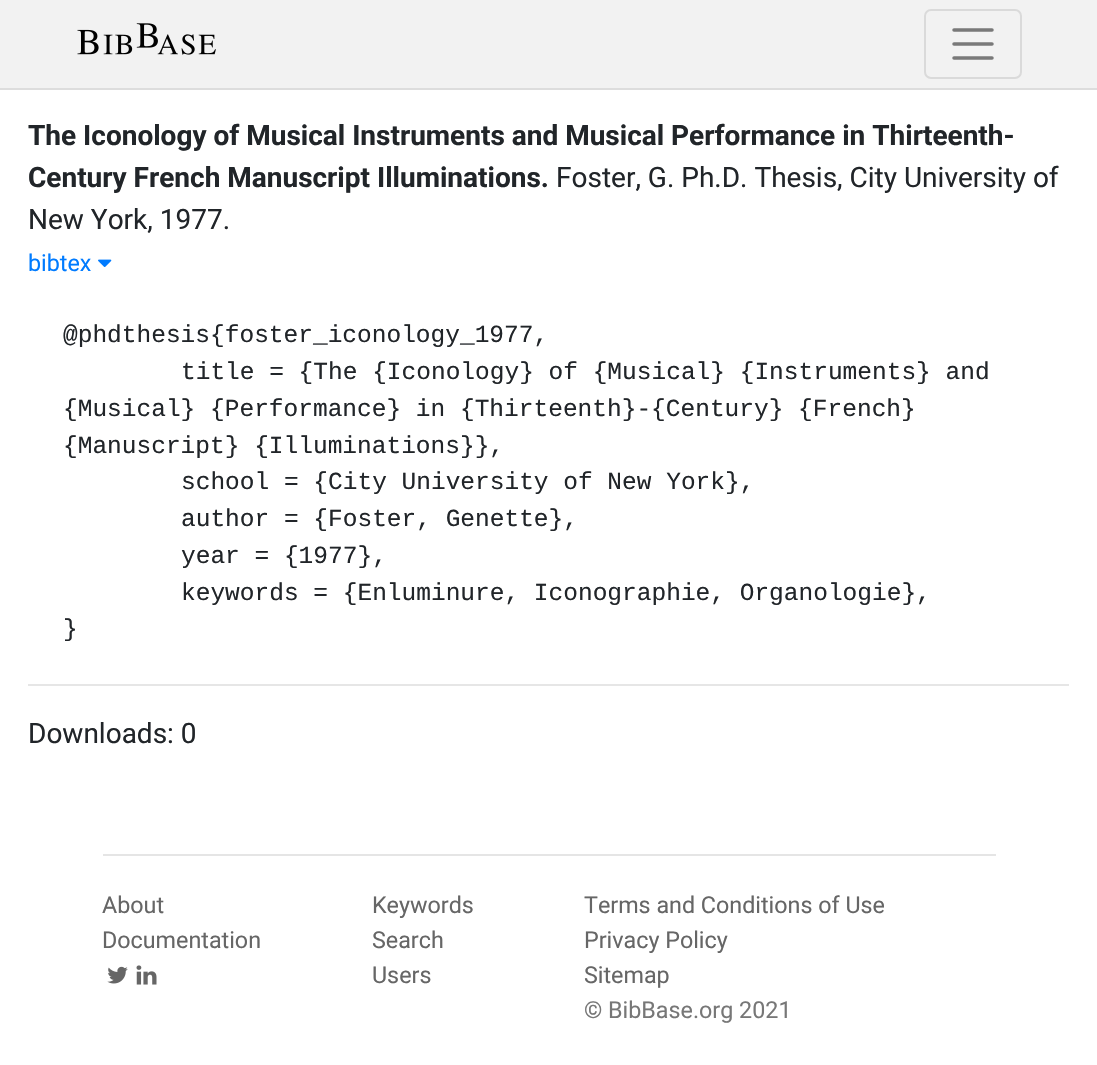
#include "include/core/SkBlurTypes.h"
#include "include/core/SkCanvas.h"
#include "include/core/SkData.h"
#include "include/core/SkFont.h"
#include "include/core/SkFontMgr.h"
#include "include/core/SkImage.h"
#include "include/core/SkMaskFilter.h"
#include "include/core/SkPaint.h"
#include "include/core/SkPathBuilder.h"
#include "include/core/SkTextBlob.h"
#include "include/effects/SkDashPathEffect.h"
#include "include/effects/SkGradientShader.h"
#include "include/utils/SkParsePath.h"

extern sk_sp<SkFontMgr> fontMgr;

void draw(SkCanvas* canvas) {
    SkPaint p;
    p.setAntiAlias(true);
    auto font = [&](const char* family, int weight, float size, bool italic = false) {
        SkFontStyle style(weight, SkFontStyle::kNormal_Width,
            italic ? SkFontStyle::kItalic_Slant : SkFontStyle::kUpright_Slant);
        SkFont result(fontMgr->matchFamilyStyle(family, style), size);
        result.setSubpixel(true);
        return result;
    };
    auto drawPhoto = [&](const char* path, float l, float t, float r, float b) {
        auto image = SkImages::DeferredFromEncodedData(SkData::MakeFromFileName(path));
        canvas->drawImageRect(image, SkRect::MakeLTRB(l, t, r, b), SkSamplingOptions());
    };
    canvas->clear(0xFFFFFFFF);
    p.setColor(0xFFF2F2F2);
    canvas->drawRect(SkRect::MakeLTRB(0, 0, 1097, 88), p);
    p.setColor(0xFFDDDDDD);
    canvas->drawRect(SkRect::MakeLTRB(0, 88, 1097, 90), p);
    drawPhoto("media/1.png", 77, 23, 216, 55);
    p.setStyle(SkPaint::kStroke_Style);
    p.setStrokeWidth(2);
    p.setColor(0xFFDADADA);
    canvas->drawRoundRect(SkRect::MakeLTRB(925, 10, 1021, 78), 6, 6, p);
    p.setStrokeWidth(3.5f);
    p.setStrokeCap(SkPaint::kRound_Cap);
    p.setColor(0xFF797979);
    canvas->drawPath(SkPathBuilder().moveTo(954, 30).lineTo(992, 30).moveTo(954, 44).lineTo(992, 44).moveTo(954, 58).lineTo(992, 58).detach(), p);
    auto font1 = font("Roboto", 700, 28);
    p.setStyle(SkPaint::kFill_Style);
    p.setColor(0xFF212529);
    canvas->drawString("The Iconology of Musical Instruments and Musical Performance in Thirteenth-", 28, 145, font1, p);
    canvas->drawString("Century French Manuscript Illuminations.", 28, 187, font1, p);
    auto font2 = font("Roboto", 400, 28);
    canvas->drawString("Foster, G. Ph.D. Thesis, City University of", 556, 187, font2, p);
    canvas->drawString("New York, 1977.", 28, 229, font2, p);
    auto font3 = font("Roboto", 400, 23.3f);
    p.setColor(0xFF007BFF);
    canvas->drawString("bibtex", 28, 271, font3, p);
    drawPhoto("media/2.png", 98, 259, 112, 267);
    auto font4 = font("Liberation Mono", 400, 24.5f);
    p.setColor(0xFF212529);
    {
        const struct { const char* s; float x, y; } items[] = {
            {"@phdthesis{foster_iconology_1977,", 63, 342},
            {"title = {The {Iconology} of {Musical} {Instruments} and", 181, 379},
            {"{Musical} {Performance} in {Thirteenth}-{Century} {French}", 63, 416},
            {"{Manuscript} {Illuminations}},", 63, 453},
            {"school = {City University of New York},", 181, 489},
            {"author = {Foster, Genette},", 181, 526},
            {"year = {1977},", 181, 563},
            {"keywords = {Enluminure, Iconographie, Organologie},", 181, 600},
            {"}", 63, 636},
        };
        for (auto [s, x, y] : items) {
            canvas->drawString(s, x, y, font4, p);
        }
    }
    p.setColor(0xFFE6E6E6);
    canvas->drawRect(SkRect::MakeLTRB(28, 684, 1069, 686), p);
    p.setColor(0xFF212529);
    canvas->drawString("Downloads: 0", 28, 743, font2, p);
    p.setColor(0xFFE5E5E5);
    canvas->drawRect(SkRect::MakeLTRB(103, 854, 996, 856), p);
    p.setColor(0xFF666666);
    canvas->drawString("About", 102, 913, font3, p);
    canvas->drawString("Documentation", 102, 948, font3, p);
    drawPhoto("media/3.png", 107, 966, 128, 984);
    drawPhoto("media/4.png", 136, 965, 157, 985);
    {
        const struct { const char* s; float x, y; } items[] = {
            {"Keywords", 372, 913},
            {"Search", 372, 948},
            {"Users", 372, 983},
            {"Terms and Conditions of Use", 584, 913},
            {"Privacy Policy", 584, 948},
            {"Sitemap", 584, 983},
        };
        for (auto [s, x, y] : items) {
            canvas->drawString(s, x, y, font3, p);
        }
    }
    p.setColor(0xFF777777);
    canvas->drawString("© BibBase.org 2021", 584, 1018, font3, p);
}
